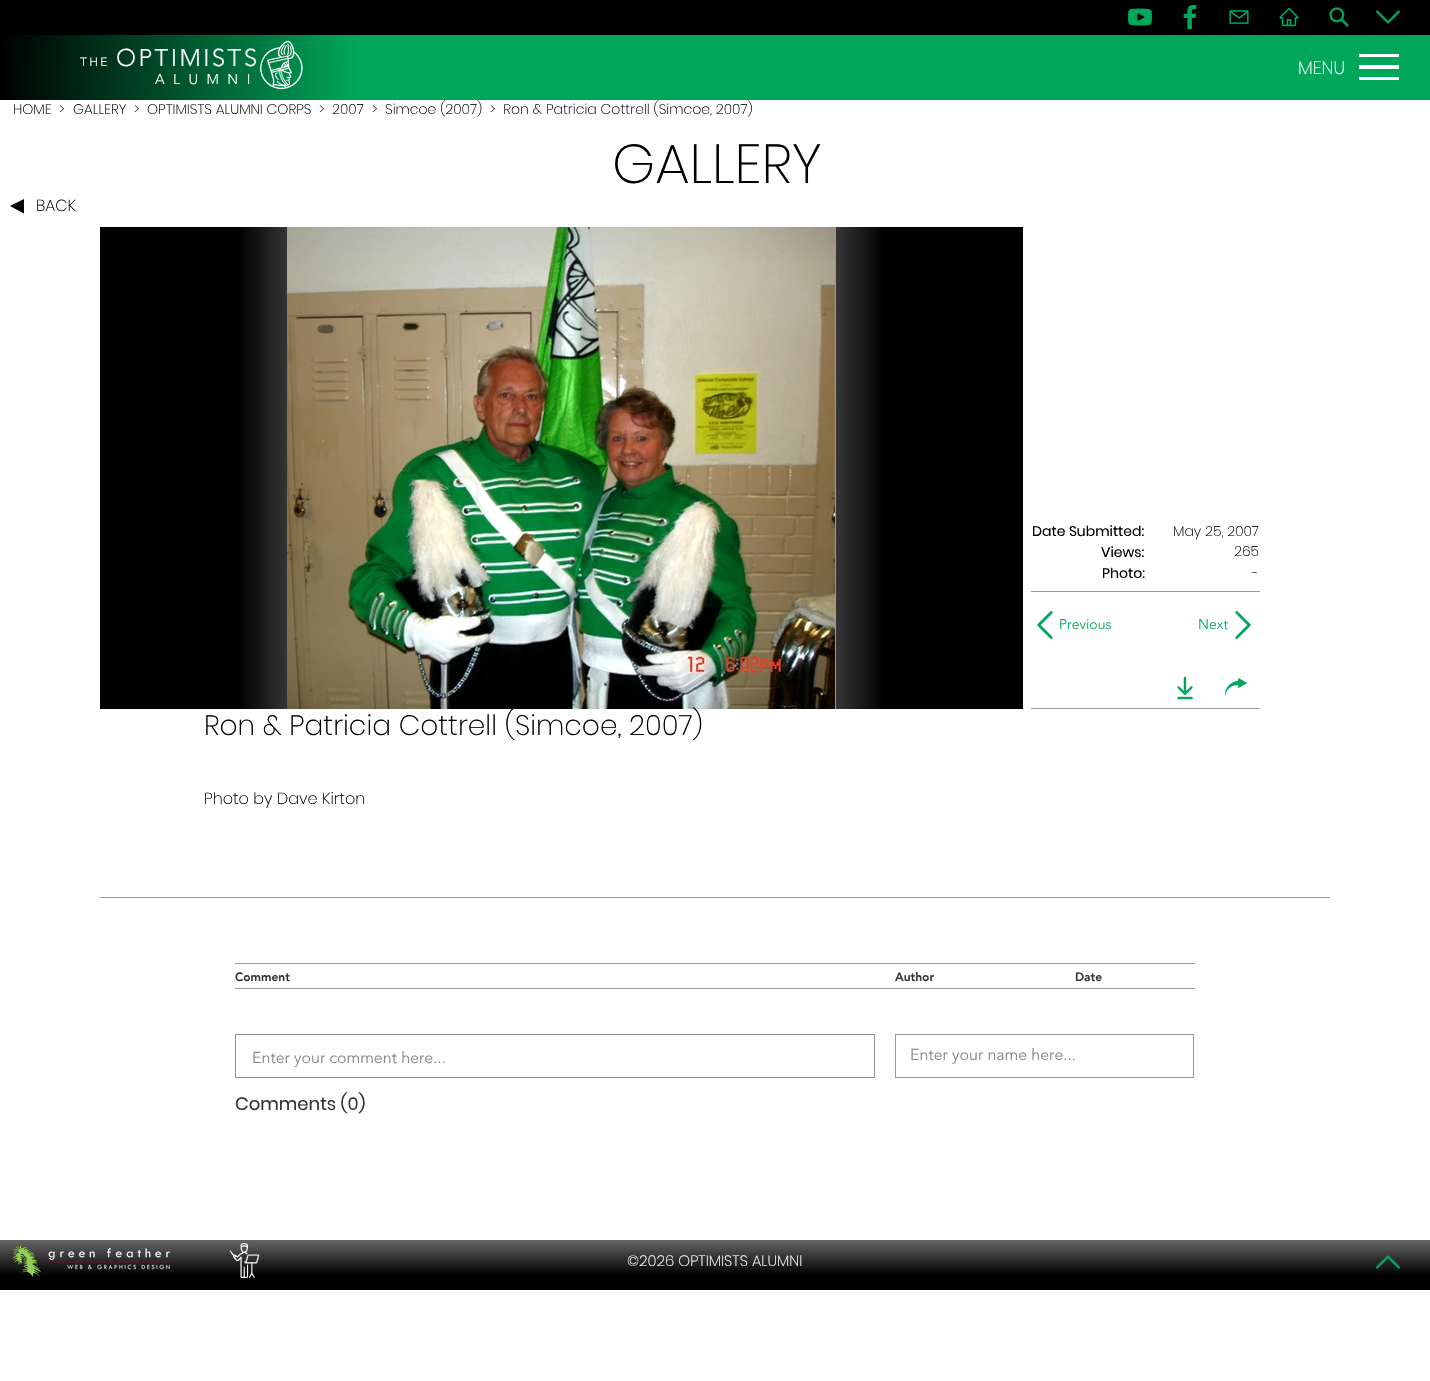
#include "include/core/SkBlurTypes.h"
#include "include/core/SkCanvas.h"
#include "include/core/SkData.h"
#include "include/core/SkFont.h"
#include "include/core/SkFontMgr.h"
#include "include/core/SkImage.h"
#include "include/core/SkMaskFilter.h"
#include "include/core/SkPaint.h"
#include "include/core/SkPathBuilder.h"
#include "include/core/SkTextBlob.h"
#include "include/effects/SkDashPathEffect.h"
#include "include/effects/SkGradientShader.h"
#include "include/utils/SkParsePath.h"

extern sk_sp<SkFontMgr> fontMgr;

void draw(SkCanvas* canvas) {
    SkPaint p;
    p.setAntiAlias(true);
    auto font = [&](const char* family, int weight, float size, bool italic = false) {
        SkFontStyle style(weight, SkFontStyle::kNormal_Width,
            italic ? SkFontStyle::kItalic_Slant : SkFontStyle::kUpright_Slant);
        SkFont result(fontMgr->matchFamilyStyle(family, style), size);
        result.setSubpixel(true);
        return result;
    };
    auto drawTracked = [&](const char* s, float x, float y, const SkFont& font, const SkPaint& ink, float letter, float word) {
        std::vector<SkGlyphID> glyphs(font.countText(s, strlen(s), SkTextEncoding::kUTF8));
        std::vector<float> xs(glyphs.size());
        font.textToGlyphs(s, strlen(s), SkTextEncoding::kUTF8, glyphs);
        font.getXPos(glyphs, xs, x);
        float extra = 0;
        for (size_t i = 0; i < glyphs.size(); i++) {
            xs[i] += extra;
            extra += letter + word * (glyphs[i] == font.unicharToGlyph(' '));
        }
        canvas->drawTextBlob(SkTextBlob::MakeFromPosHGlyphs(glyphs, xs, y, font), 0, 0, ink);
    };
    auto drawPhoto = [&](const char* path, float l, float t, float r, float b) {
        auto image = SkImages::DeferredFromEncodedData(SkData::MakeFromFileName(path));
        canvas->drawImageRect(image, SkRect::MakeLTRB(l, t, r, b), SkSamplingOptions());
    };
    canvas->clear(0xFFFFFFFF);
    p.setColor(0xFF000000);
    canvas->drawRect(SkRect::MakeLTRB(0, 0, 1430, 35), p);
    drawPhoto("media/1.png", 1128, 8, 1152, 26);
    drawPhoto("media/2.png", 1183, 5, 1197, 29);
    drawPhoto("media/3.png", 1229, 10, 1249, 24);
    drawPhoto("media/4.png", 1279, 7, 1299, 27);
    drawPhoto("media/5.png", 1329, 7, 1349, 27);
    drawPhoto("media/6.png", 1376, 10, 1400, 24);
    p.setColor(0xFF00A659);
    canvas->drawRect(SkRect::MakeLTRB(358, 35, 1430, 100), p);
    {
        const SkColor colors[] = {0xFF000000, 0xFF00A659};
        const float stops[] = {0, 1};
        const SkPoint ends[] = {{0, 68}, {358, 67}};
        p.setShader(SkGradientShader::MakeLinear(ends, colors, stops, 2, SkTileMode::kClamp));
        p.setAlpha(255);
    }
    canvas->drawRect(SkRect::MakeLTRB(0, 35, 358, 100), p);
    auto font1 = font("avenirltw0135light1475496", 300, 12);
    p.setShader(nullptr);
    p.setColor(0xFFFFFFFF);
    drawTracked("THE", 80, 66, font1, p, 2.4f, 0);
    auto font2 = font("avenirltw0135light1475496", 300, 24);
    drawTracked("OPTIMISTS", 116, 66, font2, p, 2.4f, 0);
    auto font3 = font("avenirltw0135light1475496", 300, 14);
    drawTracked("A L U M N I", 155, 84, font3, p, 2.4f, 0);
    drawPhoto("media/7.png", 260, 40, 303, 90);
    auto font4 = font("Poppins", 200, 18);
    canvas->drawString("MENU", 1298, 74, font4, p);
    {
        const struct { float l, t, r, b; SkColor color; } items[] = {
            {1359, 77, 1399, 80, 0xFFFFFFFF},
            {1359, 54, 1399, 57, 0xFFFFFFFF},
            {1359, 65, 1399, 69, 0xFFFFFFFF},
        };
        for (auto [l, t, r, b, color] : items) {
            p.setColor(color);
            canvas->drawRect(SkRect::MakeLTRB(l, t, r, b), p);
        }
    }
    auto font5 = font("Poppins", 200, 14);
    p.setColor(0xFF000000);
    {
        const struct { const char* s; float x, y; } items[] = {
            {"HOME", 13, 114},
            {">", 59, 114},
            {"GALLERY", 73, 114},
            {">", 134, 114},
            {"OPTIMISTS ALUMNI CORPS", 147, 114},
            {">", 319, 114},
            {"2007", 332, 114},
            {">", 372, 114},
            {"Simcoe (2007)", 385, 114},
            {">  Ron & Patricia Cottrell (Simcoe, 2007)", 490, 114},
        };
        for (auto [s, x, y] : items) {
            canvas->drawString(s, x, y, font5, p);
        }
    }
    auto font6 = font("Poppins", 200, 55);
    canvas->drawString("GALLERY", 612, 183, font6, p);
    canvas->drawPath(SkPathBuilder().moveTo(24, 213.5f).lineTo(10, 206).lineTo(24, 199).close().detach(), p);
    auto font7 = font("Poppins", 200, 16);
    canvas->drawString("BACK", 36, 211, font7, p);
    {
        const SkColor colors[] = {0xFF000000, 0xFFFFFFFF, 0xFFFFFFFF, 0xFF000000};
        const float stops[] = {0.15f, 0.41f, 0.6f, 0.85f};
        const SkPoint ends[] = {{100, 468}, {1023, 468}};
        p.setShader(SkGradientShader::MakeLinear(ends, colors, stops, 4, SkTileMode::kClamp));
        p.setAlpha(255);
    }
    canvas->drawRect(SkRect::MakeLTRB(100, 227, 1023, 709), p);
    p.setShader(nullptr);
    p.setColor(0xFF999999);
    canvas->drawRect(SkRect::MakeLTRB(835, 227, 836, 709), p);
    drawPhoto("media/8.png", 287, 227, 835, 709);
    auto font8 = font("Poppins", 400, 14);
    p.setColor(0xFF000000);
    canvas->drawString("Date Submitted:", 1032, 536, font8, p);
    canvas->drawString("May 25, 2007", 1173, 536, font5, p);
    canvas->drawString("Views:", 1101, 557, font8, p);
    canvas->drawString("265", 1234, 556, font5, p);
    canvas->drawString("Photo:", 1102, 578, font8, p);
    canvas->drawString("-", 1252, 578, font5, p);
    p.setColor(0xFF999999);
    canvas->drawRect(SkRect::MakeLTRB(1031, 591, 1260, 592), p);
    drawPhoto("media/9.png", 1037, 611, 1053, 639);
    p.setColor(0xFF00A659);
    canvas->drawString("Previous", 1059, 629, font3, p);
    canvas->drawString("Next", 1198, 629, font3, p);
    drawPhoto("media/10.png", 1235, 611, 1251, 639);
    drawPhoto("media/11.png", 1177, 676, 1193, 700);
    drawPhoto("media/12.png", 1224, 678, 1248, 697);
    p.setColor(0xFF999999);
    canvas->drawRect(SkRect::MakeLTRB(1031, 708, 1260, 709), p);
    auto font9 = font("Poppins", 200, 28);
    p.setColor(0xFF000000);
    canvas->drawString("Ron & Patricia Cottrell (Simcoe, 2007)", 204, 735, font9, p);
    canvas->drawString("Photo by Dave Kirton", 204, 804, font7, p);
    p.setColor(0xFF999999);
    canvas->drawRect(SkRect::MakeLTRB(100, 897, 1330, 898), p);
    canvas->drawRect(SkRect::MakeLTRB(235, 963, 1195, 964), p);
    auto font10 = font("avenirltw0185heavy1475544", 900, 12);
    p.setColor(0xFF333333);
    {
        const struct { const char* s; float x, y; } items[] = {
            {"Comment", 235, 981},
            {"Author", 895, 981},
            {"Date", 1075, 981},
        };
        for (auto [s, x, y] : items) {
            canvas->drawString(s, x, y, font10, p);
        }
    }
    p.setColor(0xFF999999);
    canvas->drawRect(SkRect::MakeLTRB(235, 988, 1195, 989), p);
    p.setStyle(SkPaint::kStroke_Style);
    p.setStrokeWidth(1);
    p.setColor(0xFF919191);
    canvas->drawRect(SkRect::MakeLTRB(235.5f, 1034.5f, 874.5f, 1077.5f), p);
    auto font11 = font("avenirltw0135light1475496", 300, 16);
    p.setStyle(SkPaint::kFill_Style);
    p.setColor(0xFF7F808A);
    canvas->drawString("Enter your comment here...", 252, 1063, font11, p);
    p.setStyle(SkPaint::kStroke_Style);
    p.setColor(0xFF999999);
    canvas->drawRect(SkRect::MakeLTRB(895.5f, 1034.5f, 1193.5f, 1077.5f), p);
    p.setStyle(SkPaint::kFill_Style);
    p.setColor(0xFF7F808A);
    canvas->drawString("Enter your name here...", 910, 1060, font11, p);
    auto font12 = font("Poppins", 400, 18);
    p.setColor(0xFF333333);
    canvas->drawString("Comments (0)", 235, 1110, font12, p);
    {
        const SkColor colors[] = {0xFF000000, 0xFF666666};
        const float stops[] = {0.29f, 1};
        const SkPoint ends[] = {{715, 1290}, {715, 1240}};
        p.setShader(SkGradientShader::MakeLinear(ends, colors, stops, 2, SkTileMode::kClamp));
        p.setAlpha(255);
    }
    canvas->drawRect(SkRect::MakeLTRB(0, 1240, 1430, 1290), p);
    drawPhoto("media/13.png", 12, 1245, 173, 1278);
    drawPhoto("media/14.png", 229, 1243, 260, 1278);
    auto font13 = font("Poppins", 200, 15);
    p.setShader(nullptr);
    p.setColor(0xFFFFFFFF);
    canvas->drawString("©2026 OPTIMISTS ALUMNI", 627, 1266, font13, p);
    drawPhoto("media/15.png", 1376, 1255, 1400, 1269);
}
